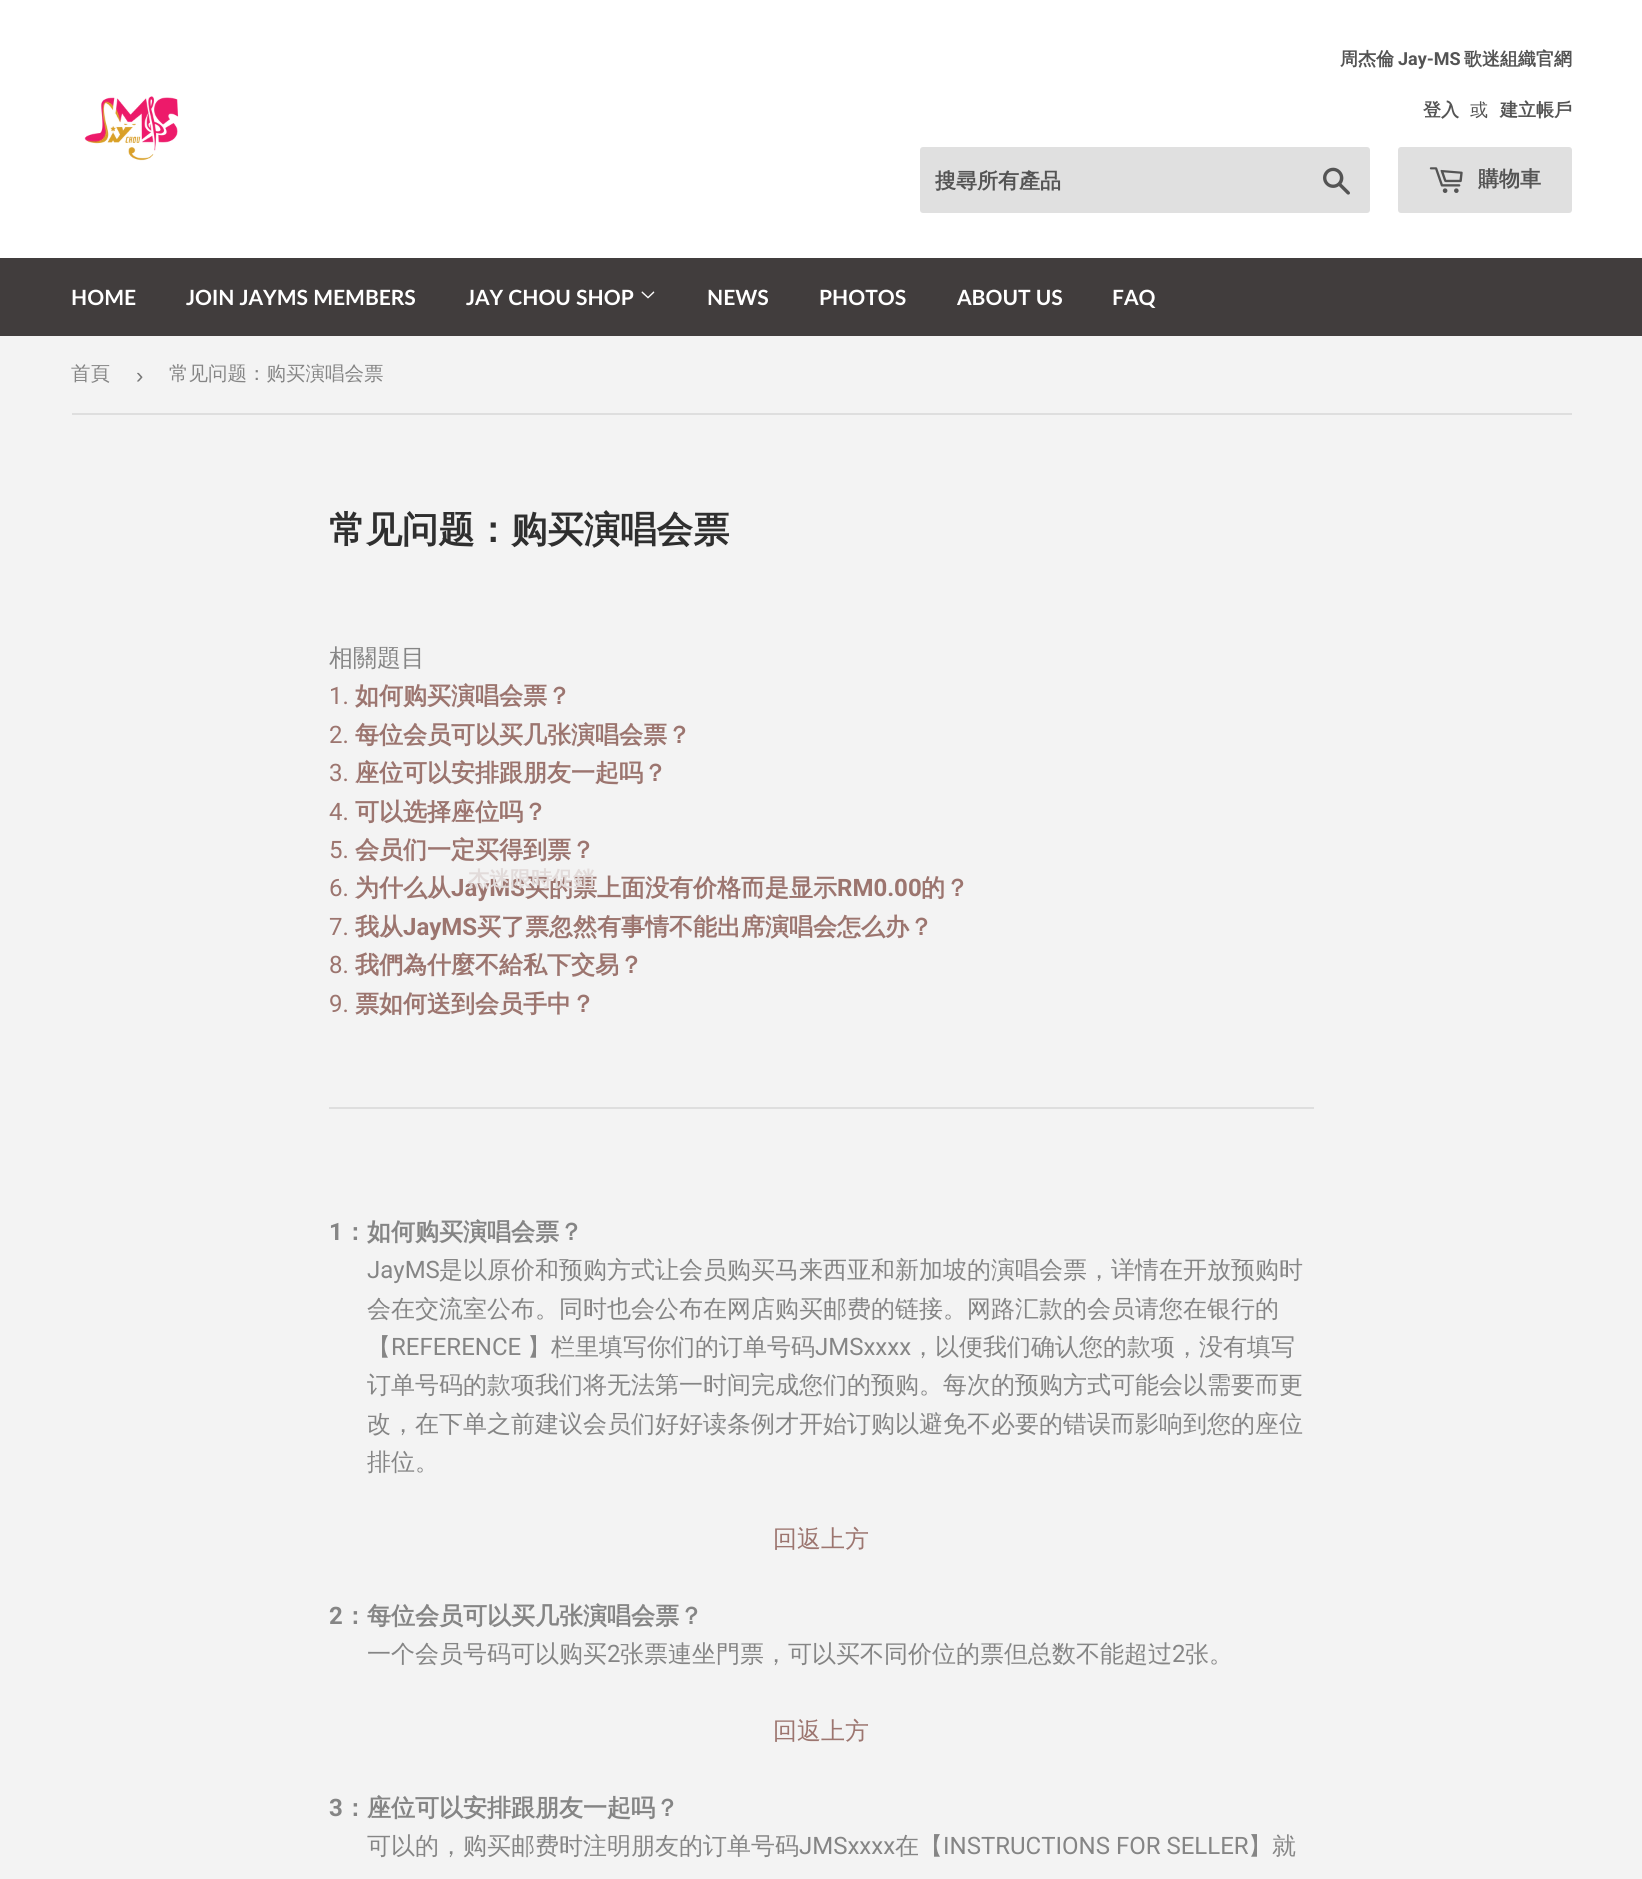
import math
import cairo


def round_path(ctx, x, y, w, h, r):
	ctx.new_sub_path()
	for i, (u, v) in enumerate([(x + w - r, y + h - r), (x + r, y + h - r), (x + r, y + r), (x + w - r, y + r)]):
		ctx.arc(u, v, r, i * math.pi / 2, (i + 1) * math.pi / 2)
	ctx.close_path()

def paste(ctx, path, x, y, w, h):
	ctx.save()
	ctx.set_source_surface(cairo.ImageSurface.create_from_png(path), x, y)
	ctx.rectangle(x, y, w, h)
	ctx.fill()
	ctx.restore()

def draw(ctx):
	ctx.set_source_rgb(0.953, 0.953, 0.953)
	ctx.paint()
	ctx.set_source_rgb(1, 1, 1)
	ctx.rectangle(0, 0, 1642, 258)
	ctx.fill()
	paste(ctx, 'media/1.png', 84, 96, 95, 65)
	ctx.select_font_face('WenQuanYi Zen Hei', cairo.FONT_SLANT_NORMAL, cairo.FONT_WEIGHT_BOLD)
	ctx.set_font_size(18)
	ctx.set_source_rgb(0.329, 0.329, 0.329)
	ctx.move_to(1340, 65)
	ctx.show_text('周杰倫')
	ctx.select_font_face('Roboto', cairo.FONT_SLANT_NORMAL, cairo.FONT_WEIGHT_BOLD)
	ctx.move_to(1398, 65)
	ctx.show_text('Jay-MS')
	ctx.select_font_face('WenQuanYi Zen Hei', cairo.FONT_SLANT_NORMAL, cairo.FONT_WEIGHT_BOLD)
	ctx.move_to(1464, 65)
	ctx.show_text('歌迷組織官網')
	ctx.move_to(1423, 116)
	ctx.show_text('登入')
	ctx.select_font_face('WenQuanYi Zen Hei Medium')
	ctx.move_to(1470, 116)
	ctx.show_text('或')
	ctx.select_font_face('WenQuanYi Zen Hei', cairo.FONT_SLANT_NORMAL, cairo.FONT_WEIGHT_BOLD)
	ctx.move_to(1500, 116)
	ctx.show_text('建立帳戶')
	ctx.set_source_rgb(0.878, 0.878, 0.878)
	round_path(ctx, 920, 147, 450, 66, 3)
	ctx.fill()
	ctx.set_font_size(21)
	ctx.set_source_rgb(0.329, 0.329, 0.329)
	ctx.move_to(935, 188)
	ctx.show_text('搜尋所有產品')
	paste(ctx, 'media/2.png', 1323, 167, 27, 28)
	ctx.set_source_rgb(0.878, 0.878, 0.878)
	round_path(ctx, 1398, 147, 174, 66, 3)
	ctx.fill()
	paste(ctx, 'media/3.png', 1429, 167, 34, 26)
	ctx.set_source_rgb(0.329, 0.329, 0.329)
	ctx.move_to(1478, 186)
	ctx.show_text('購物車')
	ctx.set_source_rgb(0.255, 0.239, 0.239)
	ctx.rectangle(0, 258, 1642, 78)
	ctx.fill()
	ctx.select_font_face('Lato', cairo.FONT_SLANT_NORMAL, cairo.FONT_WEIGHT_BOLD)
	ctx.set_source_rgb(1, 1, 1)
	for x, y, s in [
		(71, 305, 'HOME'),
		(186, 305, 'JOIN JAYMS MEMBERS'),
		(466, 305, 'JAY CHOU SHOP'),
	]:
		ctx.move_to(x, y)
		ctx.show_text(s)
	paste(ctx, 'media/4.png', 641, 291, 14, 8)
	ctx.select_font_face('Roboto', cairo.FONT_SLANT_NORMAL, cairo.FONT_WEIGHT_BOLD)
	ctx.set_font_size(24)
	ctx.set_source_rgb(0.612, 0.459, 0.435)
	ctx.move_to(451, 896)
	ctx.show_text('JayMS')
	ctx.select_font_face('WenQuanYi Zen Hei', cairo.FONT_SLANT_NORMAL, cairo.FONT_WEIGHT_BOLD)
	ctx.move_to(525, 896)
	ctx.show_text('买的票上面没有价格而是显示')
	ctx.set_font_size(21)
	ctx.set_source_rgb(0.886, 0.859, 0.855)
	ctx.move_to(468, 886)
	ctx.show_text('杰迷限時促銷')
	ctx.select_font_face('Lato', cairo.FONT_SLANT_NORMAL, cairo.FONT_WEIGHT_BOLD)
	ctx.set_source_rgb(1, 1, 1)
	for x, y, s in [
		(707, 305, 'NEWS'),
		(819, 305, 'PHOTOS'),
		(957, 305, 'ABOUT US'),
		(1112, 305, 'FAQ'),
	]:
		ctx.move_to(x, y)
		ctx.show_text(s)
	ctx.set_source_rgb(0.871, 0.871, 0.871)
	ctx.rectangle(72, 413, 1500, 2)
	ctx.fill()
	ctx.select_font_face('WenQuanYi Zen Hei Medium')
	ctx.set_font_size(19.5)
	ctx.set_source_rgb(0.522, 0.522, 0.522)
	ctx.move_to(71, 380)
	ctx.show_text('首頁')
	ctx.select_font_face('Liberation Sans')
	ctx.set_font_size(22)
	ctx.set_source_rgb(0.463, 0.463, 0.463)
	ctx.move_to(136, 383)
	ctx.show_text('›')
	ctx.select_font_face('WenQuanYi Zen Hei Medium')
	ctx.set_font_size(19.5)
	ctx.set_source_rgb(0.522, 0.522, 0.522)
	ctx.move_to(169, 380)
	ctx.show_text('常见问题：购买演唱会票')
	ctx.select_font_face('WenQuanYi Zen Hei', cairo.FONT_SLANT_NORMAL, cairo.FONT_WEIGHT_BOLD)
	ctx.set_font_size(36.4)
	ctx.set_source_rgb(0.184, 0.184, 0.184)
	ctx.move_to(329, 542)
	ctx.show_text('常见问题：购买演唱会票')
	ctx.select_font_face('WenQuanYi Zen Hei Medium')
	ctx.set_font_size(24)
	ctx.set_source_rgb(0.522, 0.522, 0.522)
	ctx.move_to(329, 666)
	ctx.show_text('相關題目')
	ctx.select_font_face('Roboto')
	ctx.set_source_rgb(0.612, 0.459, 0.435)
	ctx.move_to(329, 704)
	ctx.show_text('1.')
	ctx.select_font_face('WenQuanYi Zen Hei', cairo.FONT_SLANT_NORMAL, cairo.FONT_WEIGHT_BOLD)
	ctx.move_to(355, 704)
	ctx.show_text('如何购买演唱会票？')
	ctx.select_font_face('Roboto')
	ctx.move_to(329, 743)
	ctx.show_text('2.')
	ctx.select_font_face('WenQuanYi Zen Hei', cairo.FONT_SLANT_NORMAL, cairo.FONT_WEIGHT_BOLD)
	ctx.move_to(355, 743)
	ctx.show_text('每位会员可以买几张演唱会票？')
	ctx.select_font_face('Roboto')
	ctx.move_to(329, 781)
	ctx.show_text('3.')
	ctx.select_font_face('WenQuanYi Zen Hei', cairo.FONT_SLANT_NORMAL, cairo.FONT_WEIGHT_BOLD)
	ctx.move_to(355, 781)
	ctx.show_text('座位可以安排跟朋友一起吗？')
	ctx.select_font_face('Roboto')
	ctx.move_to(329, 820)
	ctx.show_text('4.')
	ctx.select_font_face('WenQuanYi Zen Hei', cairo.FONT_SLANT_NORMAL, cairo.FONT_WEIGHT_BOLD)
	ctx.move_to(355, 820)
	ctx.show_text('可以选择座位吗？')
	ctx.select_font_face('Roboto')
	ctx.move_to(329, 858)
	ctx.show_text('5.')
	ctx.select_font_face('WenQuanYi Zen Hei', cairo.FONT_SLANT_NORMAL, cairo.FONT_WEIGHT_BOLD)
	ctx.move_to(355, 858)
	ctx.show_text('会员们一定买得到票？')
	ctx.select_font_face('Roboto')
	ctx.move_to(329, 896)
	ctx.show_text('6.')
	ctx.select_font_face('WenQuanYi Zen Hei', cairo.FONT_SLANT_NORMAL, cairo.FONT_WEIGHT_BOLD)
	ctx.move_to(355, 896)
	ctx.show_text('为什么从')
	ctx.select_font_face('Roboto', cairo.FONT_SLANT_NORMAL, cairo.FONT_WEIGHT_BOLD)
	ctx.move_to(837, 896)
	ctx.show_text('RM0.00')
	ctx.select_font_face('WenQuanYi Zen Hei', cairo.FONT_SLANT_NORMAL, cairo.FONT_WEIGHT_BOLD)
	ctx.move_to(921, 896)
	ctx.show_text('的？')
	ctx.select_font_face('Roboto')
	ctx.move_to(329, 935)
	ctx.show_text('7.')
	ctx.select_font_face('WenQuanYi Zen Hei', cairo.FONT_SLANT_NORMAL, cairo.FONT_WEIGHT_BOLD)
	ctx.move_to(355, 935)
	ctx.show_text('我从')
	ctx.select_font_face('Roboto', cairo.FONT_SLANT_NORMAL, cairo.FONT_WEIGHT_BOLD)
	ctx.move_to(403, 935)
	ctx.show_text('JayMS')
	ctx.select_font_face('WenQuanYi Zen Hei', cairo.FONT_SLANT_NORMAL, cairo.FONT_WEIGHT_BOLD)
	ctx.move_to(477, 935)
	ctx.show_text('买了票忽然有事情不能出席演唱会怎么办？')
	ctx.select_font_face('Roboto')
	ctx.move_to(329, 973)
	ctx.show_text('8.')
	ctx.select_font_face('WenQuanYi Zen Hei', cairo.FONT_SLANT_NORMAL, cairo.FONT_WEIGHT_BOLD)
	ctx.move_to(355, 973)
	ctx.show_text('我們為什麼不給私下交易？')
	ctx.select_font_face('Roboto')
	ctx.move_to(329, 1012)
	ctx.show_text('9.')
	ctx.select_font_face('WenQuanYi Zen Hei', cairo.FONT_SLANT_NORMAL, cairo.FONT_WEIGHT_BOLD)
	ctx.move_to(355, 1012)
	ctx.show_text('票如何送到会员手中？')
	ctx.set_source_rgb(0.871, 0.871, 0.871)
	ctx.rectangle(329, 1107, 985, 2)
	ctx.fill()
	ctx.select_font_face('Roboto', cairo.FONT_SLANT_NORMAL, cairo.FONT_WEIGHT_BOLD)
	ctx.set_source_rgb(0.522, 0.522, 0.522)
	ctx.move_to(329, 1240)
	ctx.show_text('1')
	ctx.select_font_face('WenQuanYi Zen Hei', cairo.FONT_SLANT_NORMAL, cairo.FONT_WEIGHT_BOLD)
	ctx.move_to(343, 1240)
	ctx.show_text('：如何购买演唱会票？')
	ctx.select_font_face('Roboto')
	ctx.move_to(367, 1278)
	ctx.show_text('JayMS')
	ctx.select_font_face('WenQuanYi Zen Hei Medium')
	for x, y, s in [
		(439, 1278, '是以原价和预购方式让会员购买马来西亚和新加坡的演唱会票，详情在开放预购时'),
		(367, 1317, '会在交流室公布。同时也会公布在网店购买邮费的链接。网路汇款的会员请您在银行的'),
		(367, 1355, '【'),
	]:
		ctx.move_to(x, y)
		ctx.show_text(s)
	ctx.select_font_face('Roboto')
	ctx.move_to(391, 1355)
	ctx.show_text('REFERENCE')
	ctx.select_font_face('WenQuanYi Zen Hei Medium')
	ctx.move_to(527, 1355)
	ctx.show_text('】栏里填写你们的订单号码')
	ctx.select_font_face('Roboto')
	ctx.move_to(815, 1355)
	ctx.show_text('JMSxxxx')
	ctx.select_font_face('WenQuanYi Zen Hei Medium')
	for x, y, s in [
		(911, 1355, '，以便我们确认您的款项，没有填写'),
		(367, 1393, '订单号码的款项我们将无法第一时间完成您们的预购。每次的预购方式可能会以需要而更'),
		(367, 1432, '改，在下单之前建议会员们好好读条例才开始订购以避免不必要的错误而影响到您的座位'),
		(367, 1470, '排位。'),
	]:
		ctx.move_to(x, y)
		ctx.show_text(s)
	ctx.set_source_rgb(0.612, 0.459, 0.435)
	ctx.move_to(773, 1547)
	ctx.show_text('回返上方')
	ctx.select_font_face('Roboto', cairo.FONT_SLANT_NORMAL, cairo.FONT_WEIGHT_BOLD)
	ctx.set_source_rgb(0.522, 0.522, 0.522)
	ctx.move_to(329, 1624)
	ctx.show_text('2')
	ctx.select_font_face('WenQuanYi Zen Hei', cairo.FONT_SLANT_NORMAL, cairo.FONT_WEIGHT_BOLD)
	ctx.move_to(343, 1624)
	ctx.show_text('：每位会员可以买几张演唱会票？')
	ctx.select_font_face('WenQuanYi Zen Hei Medium')
	ctx.move_to(367, 1662)
	ctx.show_text('一个会员号码可以购买')
	ctx.select_font_face('Roboto')
	ctx.move_to(607, 1662)
	ctx.show_text('2')
	ctx.select_font_face('WenQuanYi Zen Hei Medium')
	ctx.move_to(620, 1662)
	ctx.show_text('张票連坐門票，可以买不同价位的票但总数不能超过')
	ctx.select_font_face('Roboto')
	ctx.move_to(1172, 1662)
	ctx.show_text('2')
	ctx.select_font_face('WenQuanYi Zen Hei Medium')
	ctx.move_to(1185, 1662)
	ctx.show_text('张。')
	ctx.set_source_rgb(0.612, 0.459, 0.435)
	ctx.move_to(773, 1739)
	ctx.show_text('回返上方')
	ctx.select_font_face('Roboto', cairo.FONT_SLANT_NORMAL, cairo.FONT_WEIGHT_BOLD)
	ctx.set_source_rgb(0.522, 0.522, 0.522)
	ctx.move_to(329, 1816)
	ctx.show_text('3')
	ctx.select_font_face('WenQuanYi Zen Hei', cairo.FONT_SLANT_NORMAL, cairo.FONT_WEIGHT_BOLD)
	ctx.move_to(343, 1816)
	ctx.show_text('：座位可以安排跟朋友一起吗？')
	ctx.select_font_face('WenQuanYi Zen Hei Medium')
	ctx.move_to(367, 1854)
	ctx.show_text('可以的，购买邮费时注明朋友的订单号码')
	ctx.select_font_face('Roboto')
	ctx.move_to(799, 1854)
	ctx.show_text('JMSxxxx')
	ctx.select_font_face('WenQuanYi Zen Hei Medium')
	ctx.move_to(895, 1854)
	ctx.show_text('在【')
	ctx.select_font_face('Roboto')
	ctx.move_to(943, 1854)
	ctx.show_text('INSTRUCTIONS FOR SELLER')
	ctx.select_font_face('WenQuanYi Zen Hei Medium')
	ctx.move_to(1248, 1854)
	ctx.show_text('】就')


surface = cairo.ImageSurface(cairo.FORMAT_RGB24, 1642, 1879)
ctx = cairo.Context(surface)
options = cairo.FontOptions()
options.set_hint_metrics(cairo.HINT_METRICS_OFF)
options.set_hint_style(cairo.HINT_STYLE_NONE)
ctx.set_font_options(options)
ctx.set_miter_limit(4)
draw(ctx)
surface.write_to_png('image.png')
